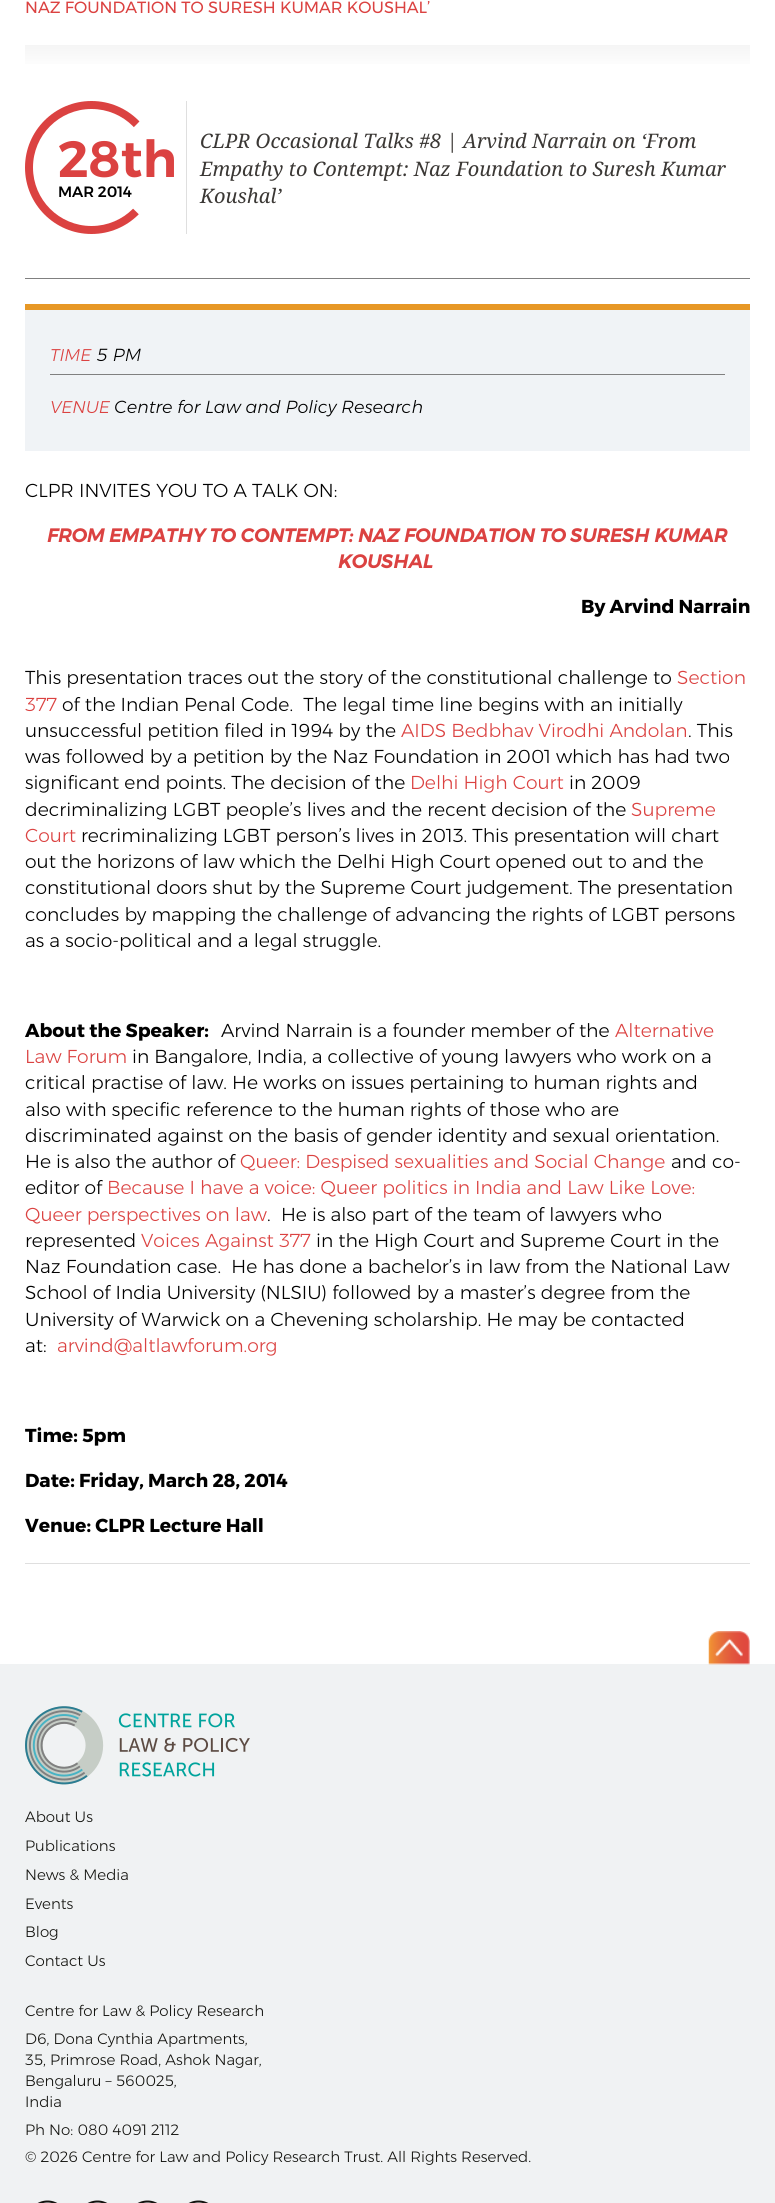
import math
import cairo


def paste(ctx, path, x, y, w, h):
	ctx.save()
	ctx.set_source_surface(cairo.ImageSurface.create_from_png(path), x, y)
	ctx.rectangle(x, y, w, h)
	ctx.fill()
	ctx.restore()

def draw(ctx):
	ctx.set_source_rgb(1, 1, 1)
	ctx.paint()
	ctx.select_font_face('Montserrat')
	ctx.set_font_size(16.25)
	ctx.set_source_rgb(0.859, 0.259, 0.255)
	ctx.move_to(25, 13)
	ctx.show_text('NAZ FOUNDATION TO SURESH KUMAR KOUSHAL’')
	gradient = cairo.LinearGradient(388, 45, 388, 70)
	gradient.add_color_stop_rgba(0, 0.961, 0.961, 0.961, 1)
	gradient.add_color_stop_rgba(1, 1, 1, 1, 1)
	ctx.set_source(gradient)
	ctx.rectangle(25, 45, 725, 19)
	ctx.fill()
	ctx.set_source_rgb(0.502, 0.502, 0.502)
	ctx.rectangle(25, 278, 725, 1)
	ctx.fill()
	ctx.set_source_rgb(0.859, 0.259, 0.255)
	ctx.arc(91.5, 167.5, 66.5, 0, 2 * math.pi)
	ctx.fill()
	ctx.set_source_rgb(1, 1, 1)
	ctx.arc(91.5, 167.5, 58.5, 0, 2 * math.pi)
	ctx.fill()
	ctx.new_path()
	ctx.move_to(140, 121.5)
	ctx.curve_to(165.5, 147, 165.5, 189, 140, 214.5)
	ctx.set_line_width(6.2)
	ctx.stroke()
	ctx.new_path()
	ctx.move_to(136.5, 124.5)
	ctx.curve_to(160, 148, 160, 188, 136.5, 212)
	ctx.set_line_width(11.2)
	ctx.stroke()
	ctx.select_font_face('Montserrat SemiBold')
	ctx.set_font_size(51)
	ctx.set_source_rgb(0.859, 0.259, 0.255)
	ctx.move_to(58, 177)
	ctx.show_text('28th')
	ctx.select_font_face('Montserrat Medium')
	ctx.set_font_size(15)
	ctx.set_source_rgb(0, 0, 0)
	ctx.move_to(58, 197)
	ctx.show_text('MAR 2014')
	ctx.set_source_rgb(0.875, 0.875, 0.875)
	ctx.rectangle(186, 101, 1, 133)
	ctx.fill()
	ctx.select_font_face('Droid Serif', cairo.FONT_SLANT_ITALIC)
	ctx.set_font_size(20)
	ctx.set_source_rgb(0.231, 0.22, 0.208)
	for x, y, s in [
		(200, 148, 'CLPR Occasional Talks #8 | Arvind Narrain on ‘From'),
		(200, 176, 'Empathy to Contempt: Naz Foundation to Suresh Kumar'),
		(200, 203, 'Koushal’'),
	]:
		ctx.move_to(x, y)
		ctx.show_text(s)
	ctx.set_source_rgb(0.875, 0.875, 0.875)
	ctx.rectangle(25, 1563, 725, 1)
	ctx.fill()
	ctx.set_source_rgb(0.941, 0.953, 0.961)
	ctx.rectangle(25, 310, 725, 141)
	ctx.fill()
	ctx.set_source_rgb(0.906, 0.596, 0.149)
	ctx.rectangle(25, 304, 725, 6)
	ctx.fill()
	ctx.set_source_rgb(0.502, 0.502, 0.502)
	ctx.rectangle(50, 374, 675, 1)
	ctx.fill()
	ctx.select_font_face('Montserrat Light', cairo.FONT_SLANT_ITALIC)
	ctx.set_font_size(17)
	ctx.set_source_rgb(0.859, 0.259, 0.255)
	ctx.move_to(50, 361)
	ctx.show_text('TIME')
	ctx.set_font_size(17.5)
	ctx.set_source_rgb(0, 0, 0)
	ctx.move_to(96, 361)
	ctx.show_text('5 PM')
	ctx.set_font_size(17)
	ctx.set_source_rgb(0.859, 0.259, 0.255)
	ctx.move_to(50, 413)
	ctx.show_text('VENUE')
	ctx.set_font_size(17.5)
	ctx.set_source_rgb(0, 0, 0)
	ctx.move_to(114, 413)
	ctx.show_text('Centre for Law and Policy Research')
	ctx.select_font_face('Montserrat Light')
	ctx.set_font_size(18.75)
	ctx.move_to(25, 497)
	ctx.show_text('CLPR INVITES YOU TO A TALK ON:')
	ctx.select_font_face('Montserrat', cairo.FONT_SLANT_ITALIC, cairo.FONT_WEIGHT_BOLD)
	ctx.set_source_rgb(0.859, 0.259, 0.255)
	ctx.move_to(47, 542)
	ctx.show_text('FROM EMPATHY TO CONTEMPT: NAZ FOUNDATION TO SURESH KUMAR')
	ctx.move_to(338, 568)
	ctx.show_text('KOUSHAL')
	ctx.select_font_face('Montserrat', cairo.FONT_SLANT_NORMAL, cairo.FONT_WEIGHT_BOLD)
	ctx.set_source_rgb(0, 0, 0)
	ctx.move_to(581, 613)
	ctx.show_text('By Arvind Narrain')
	ctx.select_font_face('Montserrat Light')
	ctx.move_to(25, 684)
	ctx.show_text('This presentation traces out the story of the constitutional challenge to')
	ctx.set_source_rgb(0.859, 0.259, 0.255)
	ctx.move_to(677, 684)
	ctx.show_text('Section')
	ctx.move_to(25, 711)
	ctx.show_text('377')
	ctx.set_source_rgb(0, 0, 0)
	ctx.move_to(62, 711)
	ctx.show_text('of the Indian Penal Code.  The legal time line begins with an initially')
	ctx.move_to(25, 737)
	ctx.show_text('unsuccessful petition filed in 1994 by the')
	ctx.set_source_rgb(0.859, 0.259, 0.255)
	ctx.move_to(401, 737)
	ctx.show_text('AIDS Bedbhav Virodhi Andolan')
	ctx.set_source_rgb(0, 0, 0)
	for x, y, s in [
		(688, 737, '. This'),
		(25, 763, 'was followed by a petition by the Naz Foundation in 2001 which has had two'),
		(25, 789, 'significant end points. The decision of the'),
	]:
		ctx.move_to(x, y)
		ctx.show_text(s)
	ctx.set_source_rgb(0.859, 0.259, 0.255)
	ctx.move_to(410, 789)
	ctx.show_text('Delhi High Court')
	ctx.set_source_rgb(0, 0, 0)
	ctx.move_to(569, 789)
	ctx.show_text('in 2009')
	ctx.move_to(25, 816)
	ctx.show_text('decriminalizing LGBT people’s lives and the recent decision of the')
	ctx.set_source_rgb(0.859, 0.259, 0.255)
	ctx.move_to(631, 816)
	ctx.show_text('Supreme')
	ctx.move_to(25, 842)
	ctx.show_text('Court')
	ctx.set_source_rgb(0, 0, 0)
	for x, y, s in [
		(81, 842, 'recriminalizing LGBT person’s lives in 2013. This presentation will chart'),
		(25, 868, 'out the horizons of law which the Delhi High Court opened out to and the'),
		(25, 894, 'constitutional doors shut by the Supreme Court judgement. The presentation'),
		(25, 921, 'concludes by mapping the challenge of advancing the rights of LGBT persons'),
		(25, 947, 'as a socio-political and a legal struggle.'),
	]:
		ctx.move_to(x, y)
		ctx.show_text(s)
	ctx.select_font_face('Montserrat', cairo.FONT_SLANT_NORMAL, cairo.FONT_WEIGHT_BOLD)
	ctx.move_to(25, 1037)
	ctx.show_text('About the Speaker:')
	ctx.select_font_face('Montserrat Light')
	ctx.move_to(221, 1037)
	ctx.show_text('Arvind Narrain is a founder member of the')
	ctx.set_source_rgb(0.859, 0.259, 0.255)
	ctx.move_to(615, 1037)
	ctx.show_text('Alternative')
	ctx.move_to(25, 1063)
	ctx.show_text('Law Forum')
	ctx.set_source_rgb(0, 0, 0)
	for x, y, s in [
		(132, 1063, 'in Bangalore, India, a collective of young lawyers who work on a'),
		(25, 1089, 'critical practise of law. He works on issues pertaining to human rights and'),
		(25, 1116, 'also with specific reference to the human rights of those who are'),
		(25, 1142, 'discriminated against on the basis of gender identity and sexual orientation.'),
		(25, 1168, 'He is also the author of'),
	]:
		ctx.move_to(x, y)
		ctx.show_text(s)
	ctx.set_source_rgb(0.859, 0.259, 0.255)
	ctx.move_to(240, 1168)
	ctx.show_text('Queer: Despised sexualities and Social Change')
	ctx.set_source_rgb(0, 0, 0)
	ctx.move_to(671, 1168)
	ctx.show_text('and co-')
	ctx.move_to(25, 1194)
	ctx.show_text('editor of')
	ctx.set_source_rgb(0.859, 0.259, 0.255)
	ctx.move_to(107, 1194)
	ctx.show_text('Because I have a voice: Queer politics in India and Law Like Love:')
	ctx.move_to(25, 1221)
	ctx.show_text('Queer perspectives on law')
	ctx.set_source_rgb(0, 0, 0)
	ctx.move_to(267, 1221)
	ctx.show_text('.  He is also part of the team of lawyers who')
	ctx.move_to(25, 1247)
	ctx.show_text('represented')
	ctx.set_source_rgb(0.859, 0.259, 0.255)
	ctx.move_to(141, 1247)
	ctx.show_text('Voices Against 377')
	ctx.set_source_rgb(0, 0, 0)
	for x, y, s in [
		(316, 1247, 'in the High Court and Supreme Court in the'),
		(25, 1273, 'Naz Foundation case.  He has done a bachelor’s in law from the National Law'),
		(25, 1299, 'School of India University (NLSIU) followed by a master’s degree from the'),
		(25, 1326, 'University of Warwick on a Chevening scholarship. He may be contacted'),
		(25, 1352, 'at:'),
	]:
		ctx.move_to(x, y)
		ctx.show_text(s)
	ctx.set_source_rgb(0.859, 0.259, 0.255)
	ctx.move_to(57, 1352)
	ctx.show_text('arvind@altlawforum.org')
	ctx.select_font_face('Montserrat', cairo.FONT_SLANT_NORMAL, cairo.FONT_WEIGHT_BOLD)
	ctx.set_source_rgb(0, 0, 0)
	for x, y, s in [
		(25, 1442, 'Time: 5pm'),
		(25, 1487, 'Date: Friday, March 28, 2014'),
		(25, 1532, 'Venue: CLPR Lecture Hall'),
	]:
		ctx.move_to(x, y)
		ctx.show_text(s)
	ctx.set_source_rgb(0.941, 0.949, 0.953)
	ctx.rectangle(0, 1664, 775, 539)
	ctx.fill()
	paste(ctx, 'media/1.png', 708, 1631, 42, 34)
	paste(ctx, 'media/2.png', 25, 1706, 225, 79)
	ctx.select_font_face('Montserrat Light')
	ctx.set_font_size(15)
	ctx.set_source_rgb(0.078, 0.075, 0.059)
	for x, y, s in [
		(25, 1822, 'About Us'),
		(25, 1851, 'Publications'),
		(25, 1880, 'News & Media'),
		(25, 1909, 'Events'),
		(25, 1937, 'Blog'),
		(25, 1966, 'Contact Us'),
		(25, 2016, 'Centre for Law & Policy Research'),
		(25, 2044, 'D6, Dona Cynthia Apartments,'),
		(25, 2065, '35, Primrose Road, Ashok Nagar,'),
		(25, 2086, 'Bengaluru – 560025,'),
		(25, 2107, 'India'),
		(25, 2135, 'Ph No: 080 4091 2112'),
		(25, 2162, '© 2026 Centre for Law and Policy Research Trust. All Rights Reserved.'),
	]:
		ctx.move_to(x, y)
		ctx.show_text(s)
	paste(ctx, 'media/3.png', 37, 2200, 21, 3)
	paste(ctx, 'media/3.png', 87, 2200, 21, 3)
	paste(ctx, 'media/3.png', 137, 2200, 21, 3)
	paste(ctx, 'media/3.png', 188, 2200, 21, 3)


surface = cairo.ImageSurface(cairo.FORMAT_RGB24, 775, 2203)
ctx = cairo.Context(surface)
options = cairo.FontOptions()
options.set_hint_metrics(cairo.HINT_METRICS_OFF)
options.set_hint_style(cairo.HINT_STYLE_NONE)
ctx.set_font_options(options)
ctx.set_miter_limit(4)
draw(ctx)
surface.write_to_png('image.png')
